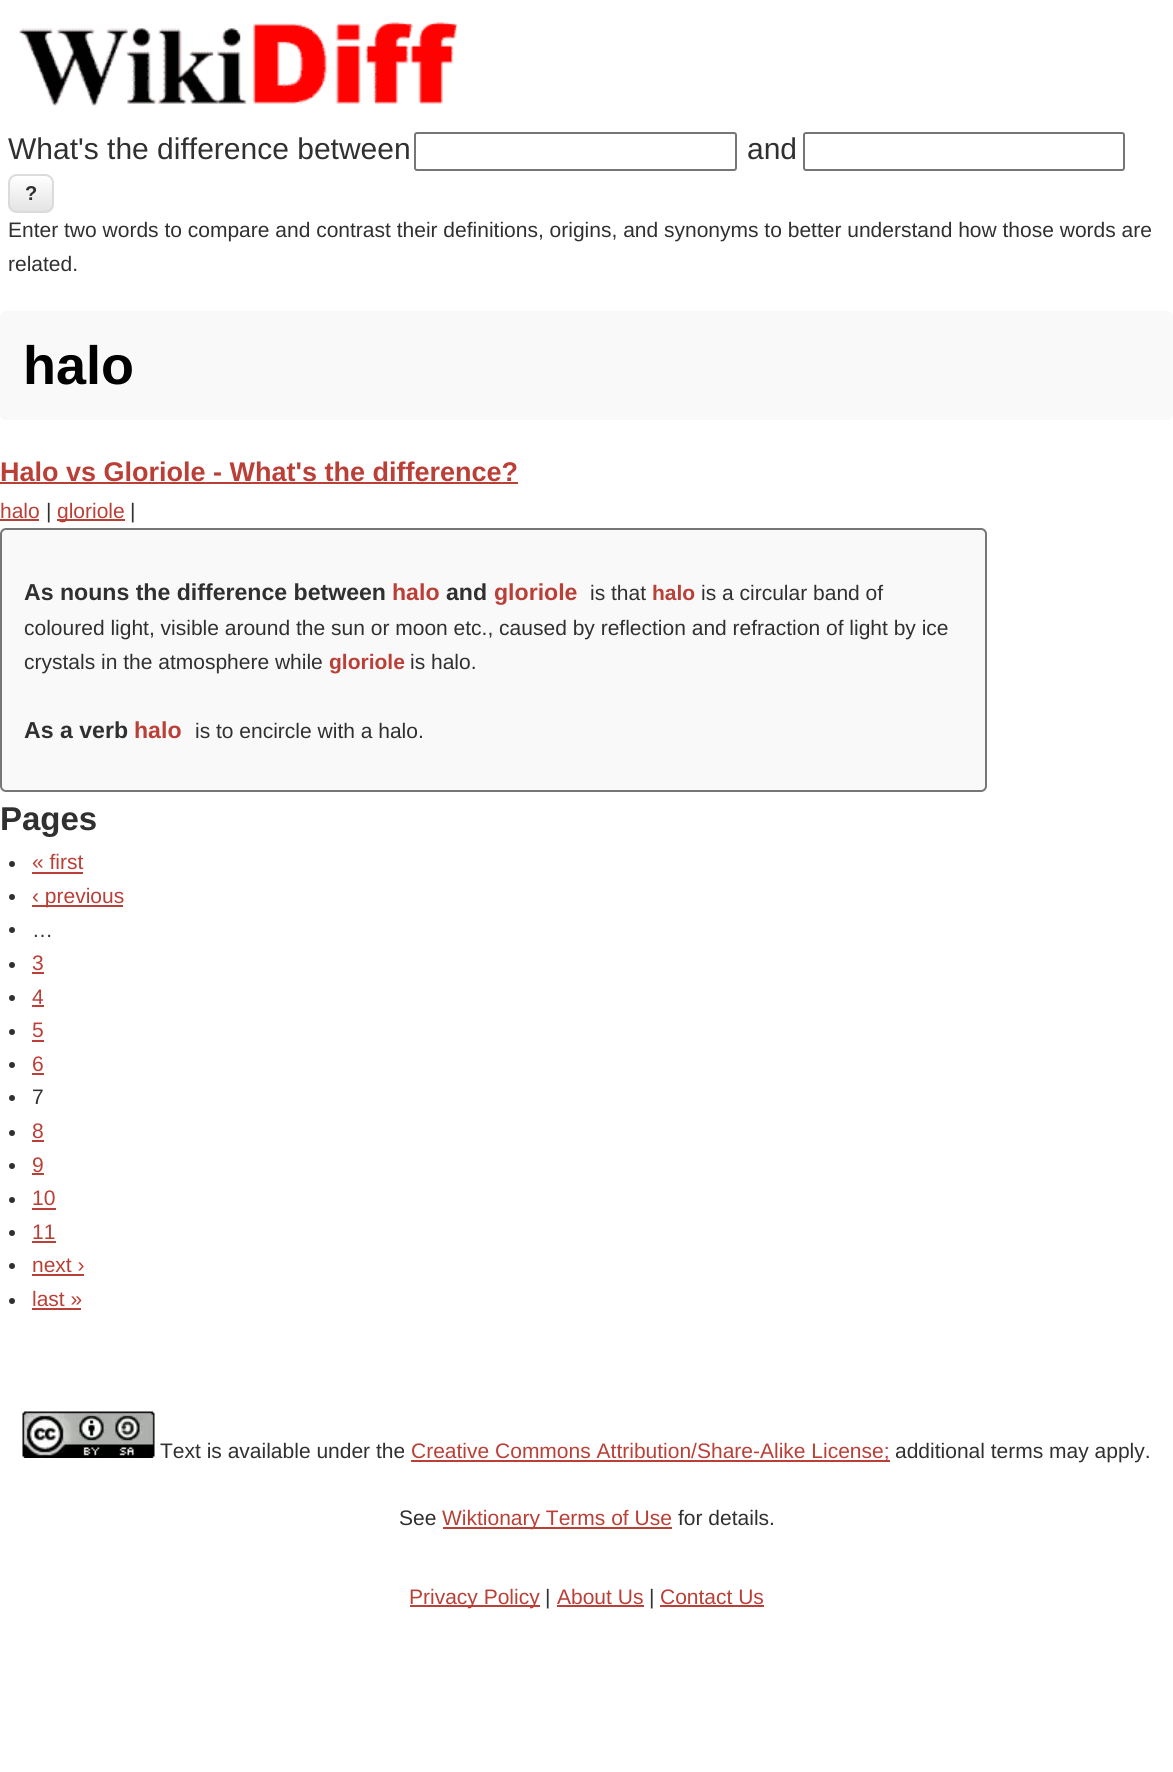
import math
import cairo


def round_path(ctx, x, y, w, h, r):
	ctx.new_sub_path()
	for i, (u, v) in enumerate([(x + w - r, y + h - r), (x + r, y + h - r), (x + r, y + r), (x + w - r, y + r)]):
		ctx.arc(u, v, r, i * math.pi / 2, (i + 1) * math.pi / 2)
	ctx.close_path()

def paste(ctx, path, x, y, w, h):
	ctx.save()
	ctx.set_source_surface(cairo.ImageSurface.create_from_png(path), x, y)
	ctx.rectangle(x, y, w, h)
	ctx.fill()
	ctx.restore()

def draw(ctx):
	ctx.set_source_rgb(1, 1, 1)
	ctx.paint()
	paste(ctx, 'media/1.png', 19, 22, 439, 84)
	ctx.select_font_face('Liberation Sans')
	ctx.set_font_size(30)
	ctx.set_source_rgb(0.188, 0.188, 0.188)
	ctx.move_to(8, 159)
	ctx.show_text('What\'s the difference between')
	round_path(ctx, 415, 133, 321, 37, 2)
	ctx.set_source_rgb(0.463, 0.463, 0.463)
	ctx.stroke()
	ctx.set_source_rgb(0.188, 0.188, 0.188)
	ctx.move_to(747, 159)
	ctx.show_text('and')
	round_path(ctx, 804, 133, 320, 37, 2)
	ctx.set_source_rgb(0.463, 0.463, 0.463)
	ctx.stroke()
	ctx.save()
	round_path(ctx, 8, 174, 46, 39, 9)
	ctx.clip()
	gradient = cairo.LinearGradient(31, 176, 31, 212)
	gradient.add_color_stop_rgba(0, 1, 1, 1, 1)
	gradient.add_color_stop_rgba(1, 0.89, 0.89, 0.89, 1)
	ctx.set_source(gradient)
	ctx.rectangle(8, 176, 46, 36)
	ctx.fill()
	ctx.restore()
	ctx.set_source_rgb(1, 1, 1)
	ctx.new_path()
	ctx.move_to(16, 177)
	ctx.line_to(40, 177)
	ctx.curve_to(53, 177, 52, 180, 52, 191)
	ctx.line_to(52, 209)
	ctx.curve_to(52, 207, 53, 206, 53, 204)
	ctx.line_to(53, 184)
	ctx.curve_to(53, 180, 49, 176, 45, 176)
	ctx.line_to(17, 176)
	ctx.curve_to(13, 176, 9, 180, 9, 184)
	ctx.curve_to(9, 180, 12, 177, 16, 177)
	ctx.close_path()
	ctx.fill()
	round_path(ctx, 9, 175, 44, 37, 8)
	ctx.set_source_rgb(0.859, 0.859, 0.859)
	ctx.stroke()
	ctx.select_font_face('Liberation Sans', cairo.FONT_SLANT_NORMAL, cairo.FONT_WEIGHT_BOLD)
	ctx.set_font_size(20)
	ctx.set_source_rgb(0.188, 0.188, 0.188)
	ctx.move_to(25, 200)
	ctx.show_text('?')
	ctx.select_font_face('Liberation Sans')
	ctx.set_font_size(21)
	ctx.move_to(8, 237)
	ctx.show_text('Enter two words to compare and contrast their definitions, origins, and synonyms to better understand how those words are')
	ctx.move_to(8, 271)
	ctx.show_text('related.')
	ctx.set_source_rgb(0.973, 0.973, 0.973)
	round_path(ctx, 0, 311, 1173, 109, 6)
	ctx.fill()
	ctx.select_font_face('Liberation Sans', cairo.FONT_SLANT_NORMAL, cairo.FONT_WEIGHT_BOLD)
	ctx.set_font_size(54)
	ctx.set_source_rgb(0, 0, 0)
	ctx.move_to(23, 384)
	ctx.show_text('halo')
	ctx.set_font_size(27)
	ctx.set_source_rgb(0.729, 0.247, 0.212)
	ctx.move_to(0, 481)
	ctx.show_text('Halo vs Gloriole - What\'s the difference?')
	ctx.rectangle(0, 482, 518, 2)
	ctx.fill()
	ctx.select_font_face('Liberation Sans')
	ctx.set_font_size(21)
	ctx.move_to(0, 518)
	ctx.show_text('halo')
	ctx.rectangle(0, 519, 39, 2)
	ctx.fill()
	ctx.set_source_rgb(0.188, 0.188, 0.188)
	ctx.move_to(46, 518)
	ctx.show_text('|')
	ctx.set_source_rgb(0.729, 0.247, 0.212)
	ctx.rectangle(57, 519, 68, 2)
	ctx.fill()
	ctx.move_to(57, 518)
	ctx.show_text('gloriole')
	ctx.set_source_rgb(0.188, 0.188, 0.188)
	ctx.move_to(130, 518)
	ctx.show_text('|')
	ctx.set_source_rgb(0.973, 0.973, 0.973)
	round_path(ctx, 1, 529, 985, 262, 5)
	ctx.fill_preserve()
	ctx.set_source_rgb(0.467, 0.467, 0.467)
	ctx.stroke()
	ctx.select_font_face('Liberation Sans', cairo.FONT_SLANT_NORMAL, cairo.FONT_WEIGHT_BOLD)
	ctx.set_font_size(23.1)
	ctx.set_source_rgb(0.188, 0.188, 0.188)
	ctx.move_to(24, 600)
	ctx.show_text('As nouns the difference between')
	ctx.set_source_rgb(0.729, 0.247, 0.212)
	ctx.move_to(392, 600)
	ctx.show_text('halo')
	ctx.set_source_rgb(0.188, 0.188, 0.188)
	ctx.move_to(446, 600)
	ctx.show_text('and')
	ctx.set_source_rgb(0.729, 0.247, 0.212)
	ctx.move_to(494, 600)
	ctx.show_text('gloriole')
	ctx.select_font_face('Liberation Sans')
	ctx.set_font_size(21)
	ctx.set_source_rgb(0.188, 0.188, 0.188)
	ctx.move_to(590, 600)
	ctx.show_text('is that')
	ctx.select_font_face('Liberation Sans', cairo.FONT_SLANT_NORMAL, cairo.FONT_WEIGHT_BOLD)
	ctx.set_source_rgb(0.729, 0.247, 0.212)
	ctx.move_to(652, 600)
	ctx.show_text('halo')
	ctx.select_font_face('Liberation Sans')
	ctx.set_source_rgb(0.188, 0.188, 0.188)
	for x, y, s in [
		(701, 600, 'is a circular band of'),
		(24, 635, 'coloured light, visible around the sun or moon etc., caused by reflection and refraction of light by ice'),
		(24, 669, 'crystals in the atmosphere while'),
	]:
		ctx.move_to(x, y)
		ctx.show_text(s)
	ctx.select_font_face('Liberation Sans', cairo.FONT_SLANT_NORMAL, cairo.FONT_WEIGHT_BOLD)
	ctx.set_source_rgb(0.729, 0.247, 0.212)
	ctx.move_to(329, 669)
	ctx.show_text('gloriole')
	ctx.select_font_face('Liberation Sans')
	ctx.set_source_rgb(0.188, 0.188, 0.188)
	ctx.move_to(410, 669)
	ctx.show_text('is halo.')
	ctx.select_font_face('Liberation Sans', cairo.FONT_SLANT_NORMAL, cairo.FONT_WEIGHT_BOLD)
	ctx.set_font_size(23.1)
	ctx.move_to(24, 738)
	ctx.show_text('As a verb')
	ctx.set_source_rgb(0.729, 0.247, 0.212)
	ctx.move_to(134, 738)
	ctx.show_text('halo')
	ctx.select_font_face('Liberation Sans')
	ctx.set_font_size(21)
	ctx.set_source_rgb(0.188, 0.188, 0.188)
	ctx.move_to(195, 738)
	ctx.show_text('is to encircle with a halo.')
	ctx.select_font_face('Liberation Sans', cairo.FONT_SLANT_NORMAL, cairo.FONT_WEIGHT_BOLD)
	ctx.set_font_size(33)
	ctx.move_to(0, 830)
	ctx.show_text('Pages')
	ctx.new_path()
	ctx.arc(12, 864, 3, 0, 2 * math.pi)
	ctx.fill()
	ctx.select_font_face('Liberation Sans')
	ctx.set_font_size(21)
	ctx.set_source_rgb(0.729, 0.247, 0.212)
	ctx.move_to(32, 869)
	ctx.show_text('« first')
	ctx.rectangle(32, 872, 51, 2)
	ctx.fill()
	ctx.set_source_rgb(0.188, 0.188, 0.188)
	ctx.arc(12, 897, 3, 0, 2 * math.pi)
	ctx.fill()
	ctx.set_source_rgb(0.729, 0.247, 0.212)
	ctx.rectangle(32, 905, 91, 2)
	ctx.fill()
	ctx.move_to(32, 903)
	ctx.show_text('‹ previous')
	ctx.set_source_rgb(0.188, 0.188, 0.188)
	ctx.new_path()
	ctx.arc(12, 930, 3, 0, 2 * math.pi)
	ctx.fill()
	ctx.move_to(32, 937)
	ctx.show_text('…')
	ctx.new_path()
	ctx.arc(12, 965, 3, 0, 2 * math.pi)
	ctx.fill()
	ctx.set_source_rgb(0.729, 0.247, 0.212)
	ctx.move_to(32, 970)
	ctx.show_text('3')
	ctx.rectangle(32, 972, 12, 2)
	ctx.fill()
	ctx.set_source_rgb(0.188, 0.188, 0.188)
	ctx.arc(12, 998, 3, 0, 2 * math.pi)
	ctx.fill()
	ctx.set_source_rgb(0.729, 0.247, 0.212)
	ctx.move_to(32, 1004)
	ctx.show_text('4')
	ctx.rectangle(32, 1005, 12, 2)
	ctx.fill()
	ctx.set_source_rgb(0.188, 0.188, 0.188)
	ctx.arc(12, 1032, 3, 0, 2 * math.pi)
	ctx.fill()
	ctx.set_source_rgb(0.729, 0.247, 0.212)
	ctx.move_to(32, 1037)
	ctx.show_text('5')
	ctx.rectangle(32, 1040, 12, 2)
	ctx.fill()
	ctx.set_source_rgb(0.188, 0.188, 0.188)
	ctx.arc(12, 1065, 3, 0, 2 * math.pi)
	ctx.fill()
	ctx.set_source_rgb(0.729, 0.247, 0.212)
	ctx.move_to(32, 1071)
	ctx.show_text('6')
	ctx.rectangle(32, 1073, 12, 2)
	ctx.fill()
	ctx.set_source_rgb(0.188, 0.188, 0.188)
	ctx.arc(12, 1098, 3, 0, 2 * math.pi)
	ctx.fill()
	ctx.move_to(32, 1104)
	ctx.show_text('7')
	ctx.new_path()
	ctx.arc(12, 1133, 3, 0, 2 * math.pi)
	ctx.fill()
	ctx.set_source_rgb(0.729, 0.247, 0.212)
	ctx.move_to(32, 1138)
	ctx.show_text('8')
	ctx.rectangle(32, 1140, 12, 2)
	ctx.fill()
	ctx.set_source_rgb(0.188, 0.188, 0.188)
	ctx.arc(12, 1166, 3, 0, 2 * math.pi)
	ctx.fill()
	ctx.set_source_rgb(0.729, 0.247, 0.212)
	ctx.move_to(32, 1172)
	ctx.show_text('9')
	ctx.rectangle(32, 1173, 12, 2)
	ctx.fill()
	ctx.set_source_rgb(0.188, 0.188, 0.188)
	ctx.arc(12, 1200, 3, 0, 2 * math.pi)
	ctx.fill()
	ctx.set_source_rgb(0.729, 0.247, 0.212)
	ctx.move_to(32, 1205)
	ctx.show_text('10')
	ctx.rectangle(32, 1208, 24, 2)
	ctx.fill()
	ctx.set_source_rgb(0.188, 0.188, 0.188)
	ctx.arc(12, 1233, 3, 0, 2 * math.pi)
	ctx.fill()
	ctx.set_source_rgb(0.729, 0.247, 0.212)
	ctx.move_to(32, 1239)
	ctx.show_text('11')
	ctx.rectangle(32, 1241, 24, 2)
	ctx.fill()
	ctx.set_source_rgb(0.188, 0.188, 0.188)
	ctx.arc(12, 1266, 3, 0, 2 * math.pi)
	ctx.fill()
	ctx.set_source_rgb(0.729, 0.247, 0.212)
	ctx.move_to(32, 1272)
	ctx.show_text('next ›')
	ctx.rectangle(32, 1274, 52, 2)
	ctx.fill()
	ctx.set_source_rgb(0.188, 0.188, 0.188)
	ctx.arc(12, 1301, 3, 0, 2 * math.pi)
	ctx.fill()
	ctx.set_source_rgb(0.729, 0.247, 0.212)
	ctx.move_to(32, 1306)
	ctx.show_text('last »')
	ctx.rectangle(32, 1308, 49, 2)
	ctx.fill()
	paste(ctx, 'media/2.png', 22, 1411, 133, 47)
	ctx.set_source_rgb(0.188, 0.188, 0.188)
	ctx.move_to(160, 1458)
	ctx.show_text('Text is available under the')
	ctx.set_source_rgb(0.729, 0.247, 0.212)
	ctx.rectangle(411, 1460, 479, 2)
	ctx.fill()
	ctx.move_to(411, 1458)
	ctx.show_text('Creative Commons Attribution/Share-Alike License;')
	ctx.set_source_rgb(0.188, 0.188, 0.188)
	ctx.move_to(895, 1458)
	ctx.show_text('additional terms may apply.')
	ctx.move_to(399, 1525)
	ctx.show_text('See')
	ctx.set_source_rgb(0.729, 0.247, 0.212)
	ctx.rectangle(443, 1527, 229, 2)
	ctx.fill()
	ctx.move_to(442, 1525)
	ctx.show_text('Wiktionary Terms of Use')
	ctx.set_source_rgb(0.188, 0.188, 0.188)
	ctx.move_to(678, 1525)
	ctx.show_text('for details.')
	ctx.set_source_rgb(0.729, 0.247, 0.212)
	ctx.rectangle(410, 1605, 130, 2)
	ctx.fill()
	ctx.move_to(409, 1604)
	ctx.show_text('Privacy Policy')
	ctx.set_source_rgb(0.188, 0.188, 0.188)
	ctx.move_to(545, 1604)
	ctx.show_text('|')
	ctx.set_source_rgb(0.729, 0.247, 0.212)
	ctx.move_to(557, 1604)
	ctx.show_text('About Us')
	ctx.rectangle(557, 1605, 87, 2)
	ctx.fill()
	ctx.set_source_rgb(0.188, 0.188, 0.188)
	ctx.move_to(649, 1604)
	ctx.show_text('|')
	ctx.set_source_rgb(0.729, 0.247, 0.212)
	ctx.move_to(660, 1604)
	ctx.show_text('Contact Us')
	ctx.rectangle(660, 1605, 104, 2)
	ctx.fill()


surface = cairo.ImageSurface(cairo.FORMAT_RGB24, 1173, 1772)
ctx = cairo.Context(surface)
options = cairo.FontOptions()
options.set_hint_metrics(cairo.HINT_METRICS_OFF)
options.set_hint_style(cairo.HINT_STYLE_NONE)
ctx.set_font_options(options)
ctx.set_miter_limit(4)
draw(ctx)
surface.write_to_png('image.png')
